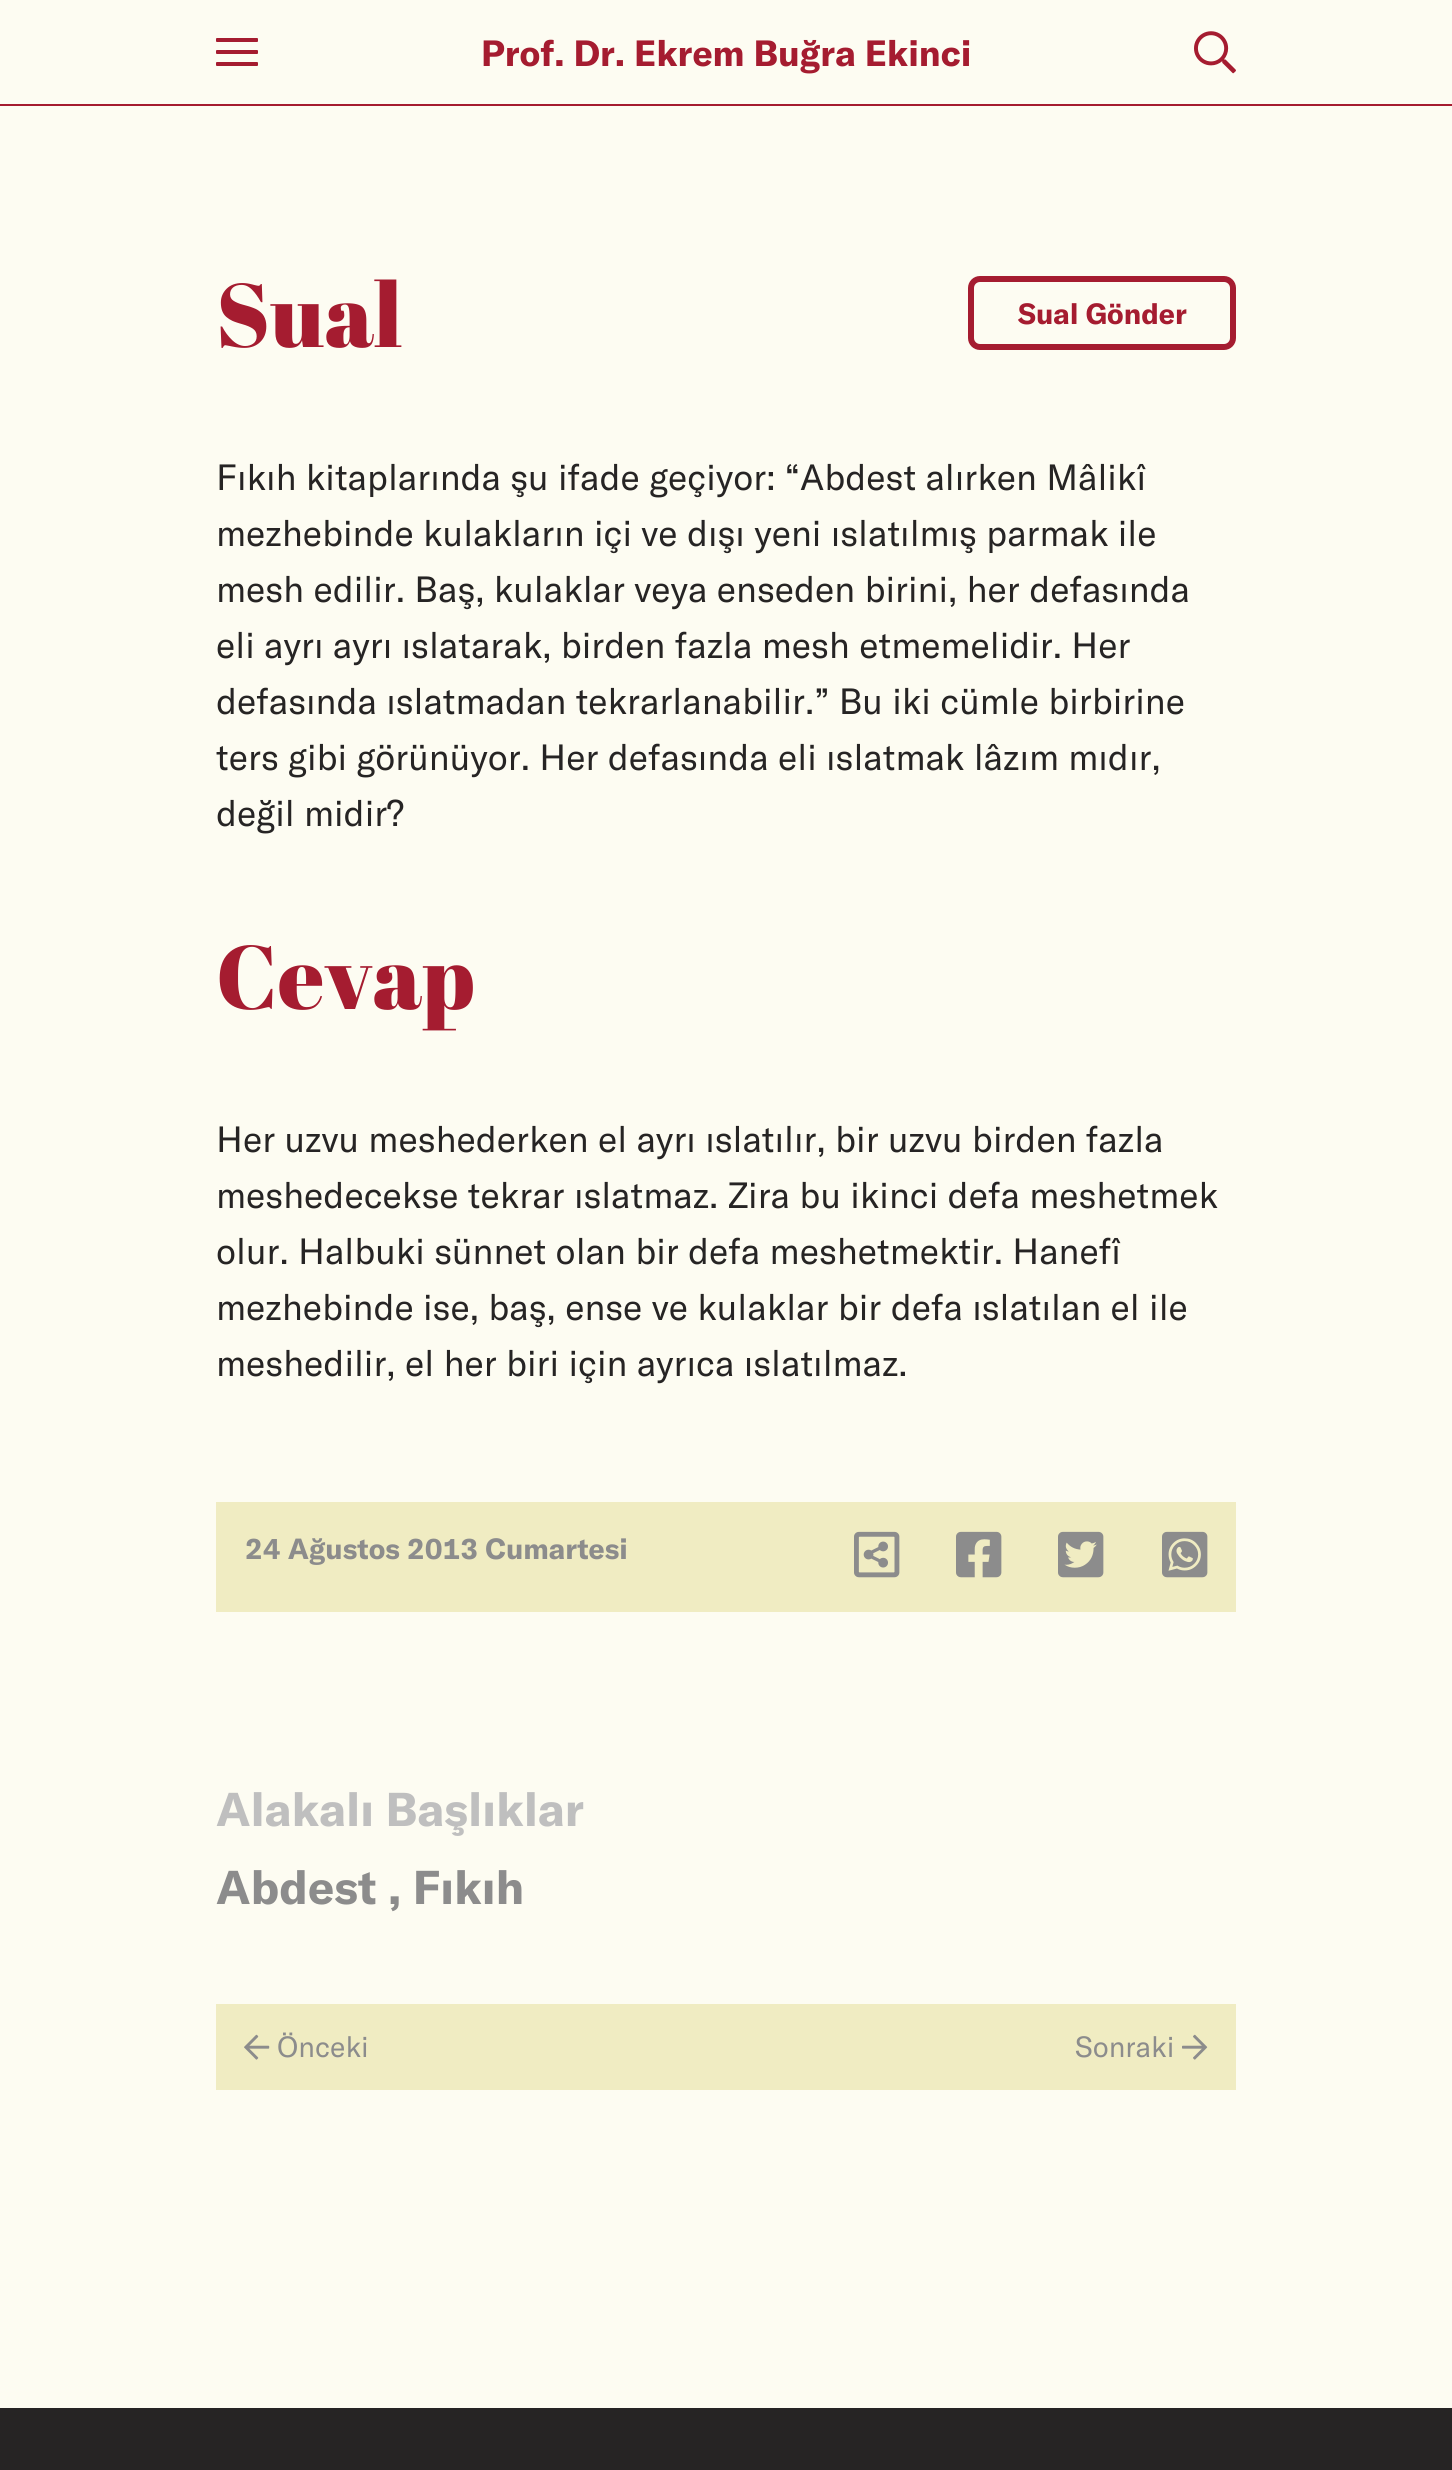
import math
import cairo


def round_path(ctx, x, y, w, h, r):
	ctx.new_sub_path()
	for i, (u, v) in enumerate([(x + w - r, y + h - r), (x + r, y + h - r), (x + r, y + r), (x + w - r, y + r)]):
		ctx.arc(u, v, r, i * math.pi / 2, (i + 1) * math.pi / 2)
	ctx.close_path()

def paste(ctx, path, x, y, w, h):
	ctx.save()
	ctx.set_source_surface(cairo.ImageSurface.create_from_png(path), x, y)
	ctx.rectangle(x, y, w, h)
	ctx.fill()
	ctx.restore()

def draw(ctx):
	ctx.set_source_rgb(0.992, 0.988, 0.949)
	ctx.paint()
	ctx.set_source_rgb(0.647, 0.11, 0.188)
	ctx.rectangle(0, 104, 1452, 2)
	ctx.fill()
	round_path(ctx, 216, 62, 42, 4, 1)
	ctx.fill()
	round_path(ctx, 216, 38, 42, 4, 1)
	ctx.fill()
	round_path(ctx, 216, 50, 42, 4, 1)
	ctx.fill()
	ctx.select_font_face('GT America', cairo.FONT_SLANT_NORMAL, cairo.FONT_WEIGHT_BOLD)
	ctx.set_font_size(36)
	ctx.move_to(481, 66)
	ctx.show_text('Prof. Dr. Ekrem Buğra Ekinci')
	paste(ctx, 'media/1.png', 1194, 31, 42, 43)
	ctx.select_font_face('Abril Fatface')
	ctx.set_font_size(90)
	ctx.move_to(216, 347)
	ctx.show_text('Sual')
	round_path(ctx, 971, 279, 262, 68, 9)
	ctx.set_line_width(6)
	ctx.stroke()
	ctx.select_font_face('GT America', cairo.FONT_SLANT_NORMAL, cairo.FONT_WEIGHT_BOLD)
	ctx.set_font_size(28.75)
	ctx.move_to(1018, 324)
	ctx.show_text('Sual Gönder')
	ctx.select_font_face('GT America')
	ctx.set_font_size(36)
	ctx.set_source_rgb(0.149, 0.141, 0.141)
	for x, y, s in [
		(216, 490, 'Fıkıh kitaplarında şu ifade geçiyor: “Abdest alırken Mâlikî'),
		(216, 546, 'mezhebinde kulakların içi ve dışı yeni ıslatılmış parmak ile'),
		(216, 602, 'mesh edilir. Baş, kulaklar veya enseden birini, her defasında'),
		(216, 658, 'eli ayrı ayrı ıslatarak, birden fazla mesh etmemelidir. Her'),
		(216, 714, 'defasında ıslatmadan tekrarlanabilir.” Bu iki cümle birbirine'),
		(216, 770, 'ters gibi görünüyor. Her defasında eli ıslatmak lâzım mıdır,'),
		(216, 826, 'değil midir?'),
	]:
		ctx.move_to(x, y)
		ctx.show_text(s)
	ctx.select_font_face('Abril Fatface')
	ctx.set_font_size(90)
	ctx.set_source_rgb(0.647, 0.11, 0.188)
	ctx.move_to(216, 1009)
	ctx.show_text('Cevap')
	ctx.select_font_face('GT America')
	ctx.set_font_size(36)
	ctx.set_source_rgb(0.149, 0.141, 0.141)
	for x, y, s in [
		(216, 1152, 'Her uzvu meshederken el ayrı ıslatılır, bir uzvu birden fazla'),
		(216, 1208, 'meshedecekse tekrar ıslatmaz. Zira bu ikinci defa meshetmek'),
		(216, 1264, 'olur. Halbuki sünnet olan bir defa meshetmektir. Hanefî'),
		(216, 1320, 'mezhebinde ise, baş, ense ve kulaklar bir defa ıslatılan el ile'),
		(216, 1376, 'meshedilir, el her biri için ayrıca ıslatılmaz.'),
	]:
		ctx.move_to(x, y)
		ctx.show_text(s)
	ctx.set_source_rgb(0.941, 0.925, 0.761)
	ctx.rectangle(216, 1502, 1020, 110)
	ctx.fill()
	ctx.select_font_face('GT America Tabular', cairo.FONT_SLANT_NORMAL, cairo.FONT_WEIGHT_BOLD)
	ctx.set_font_size(28.75)
	ctx.set_source_rgb(0.549, 0.549, 0.549)
	ctx.move_to(245, 1559)
	ctx.show_text('24 Ağustos 2013 Cumartesi')
	paste(ctx, 'media/2.png', 854, 1531, 46, 47)
	paste(ctx, 'media/3.png', 956, 1531, 46, 47)
	paste(ctx, 'media/4.png', 1058, 1531, 46, 47)
	paste(ctx, 'media/5.png', 1162, 1531, 46, 47)
	ctx.select_font_face('GT America', cairo.FONT_SLANT_NORMAL, cairo.FONT_WEIGHT_BOLD)
	ctx.set_font_size(46.75)
	ctx.set_source_rgb(0.749, 0.749, 0.749)
	ctx.move_to(216, 1826)
	ctx.show_text('Alakalı Başlıklar')
	ctx.set_source_rgb(0.549, 0.549, 0.549)
	ctx.move_to(216, 1904)
	ctx.show_text('Abdest , Fıkıh')
	ctx.set_source_rgb(0.941, 0.925, 0.761)
	ctx.rectangle(216, 2004, 1020, 86)
	ctx.fill()
	paste(ctx, 'media/6.png', 244, 2034, 26, 26)
	ctx.select_font_face('GT America')
	ctx.set_font_size(28.75)
	ctx.set_source_rgb(0.549, 0.549, 0.549)
	ctx.move_to(277, 2057)
	ctx.show_text('Önceki')
	ctx.move_to(1075, 2057)
	ctx.show_text('Sonraki')
	paste(ctx, 'media/7.png', 1182, 2034, 26, 26)
	ctx.set_source_rgb(0.149, 0.141, 0.141)
	ctx.rectangle(0, 2408, 1452, 62)
	ctx.fill()


surface = cairo.ImageSurface(cairo.FORMAT_RGB24, 1452, 2470)
ctx = cairo.Context(surface)
options = cairo.FontOptions()
options.set_hint_metrics(cairo.HINT_METRICS_OFF)
options.set_hint_style(cairo.HINT_STYLE_NONE)
ctx.set_font_options(options)
ctx.set_miter_limit(4)
draw(ctx)
surface.write_to_png('image.png')
